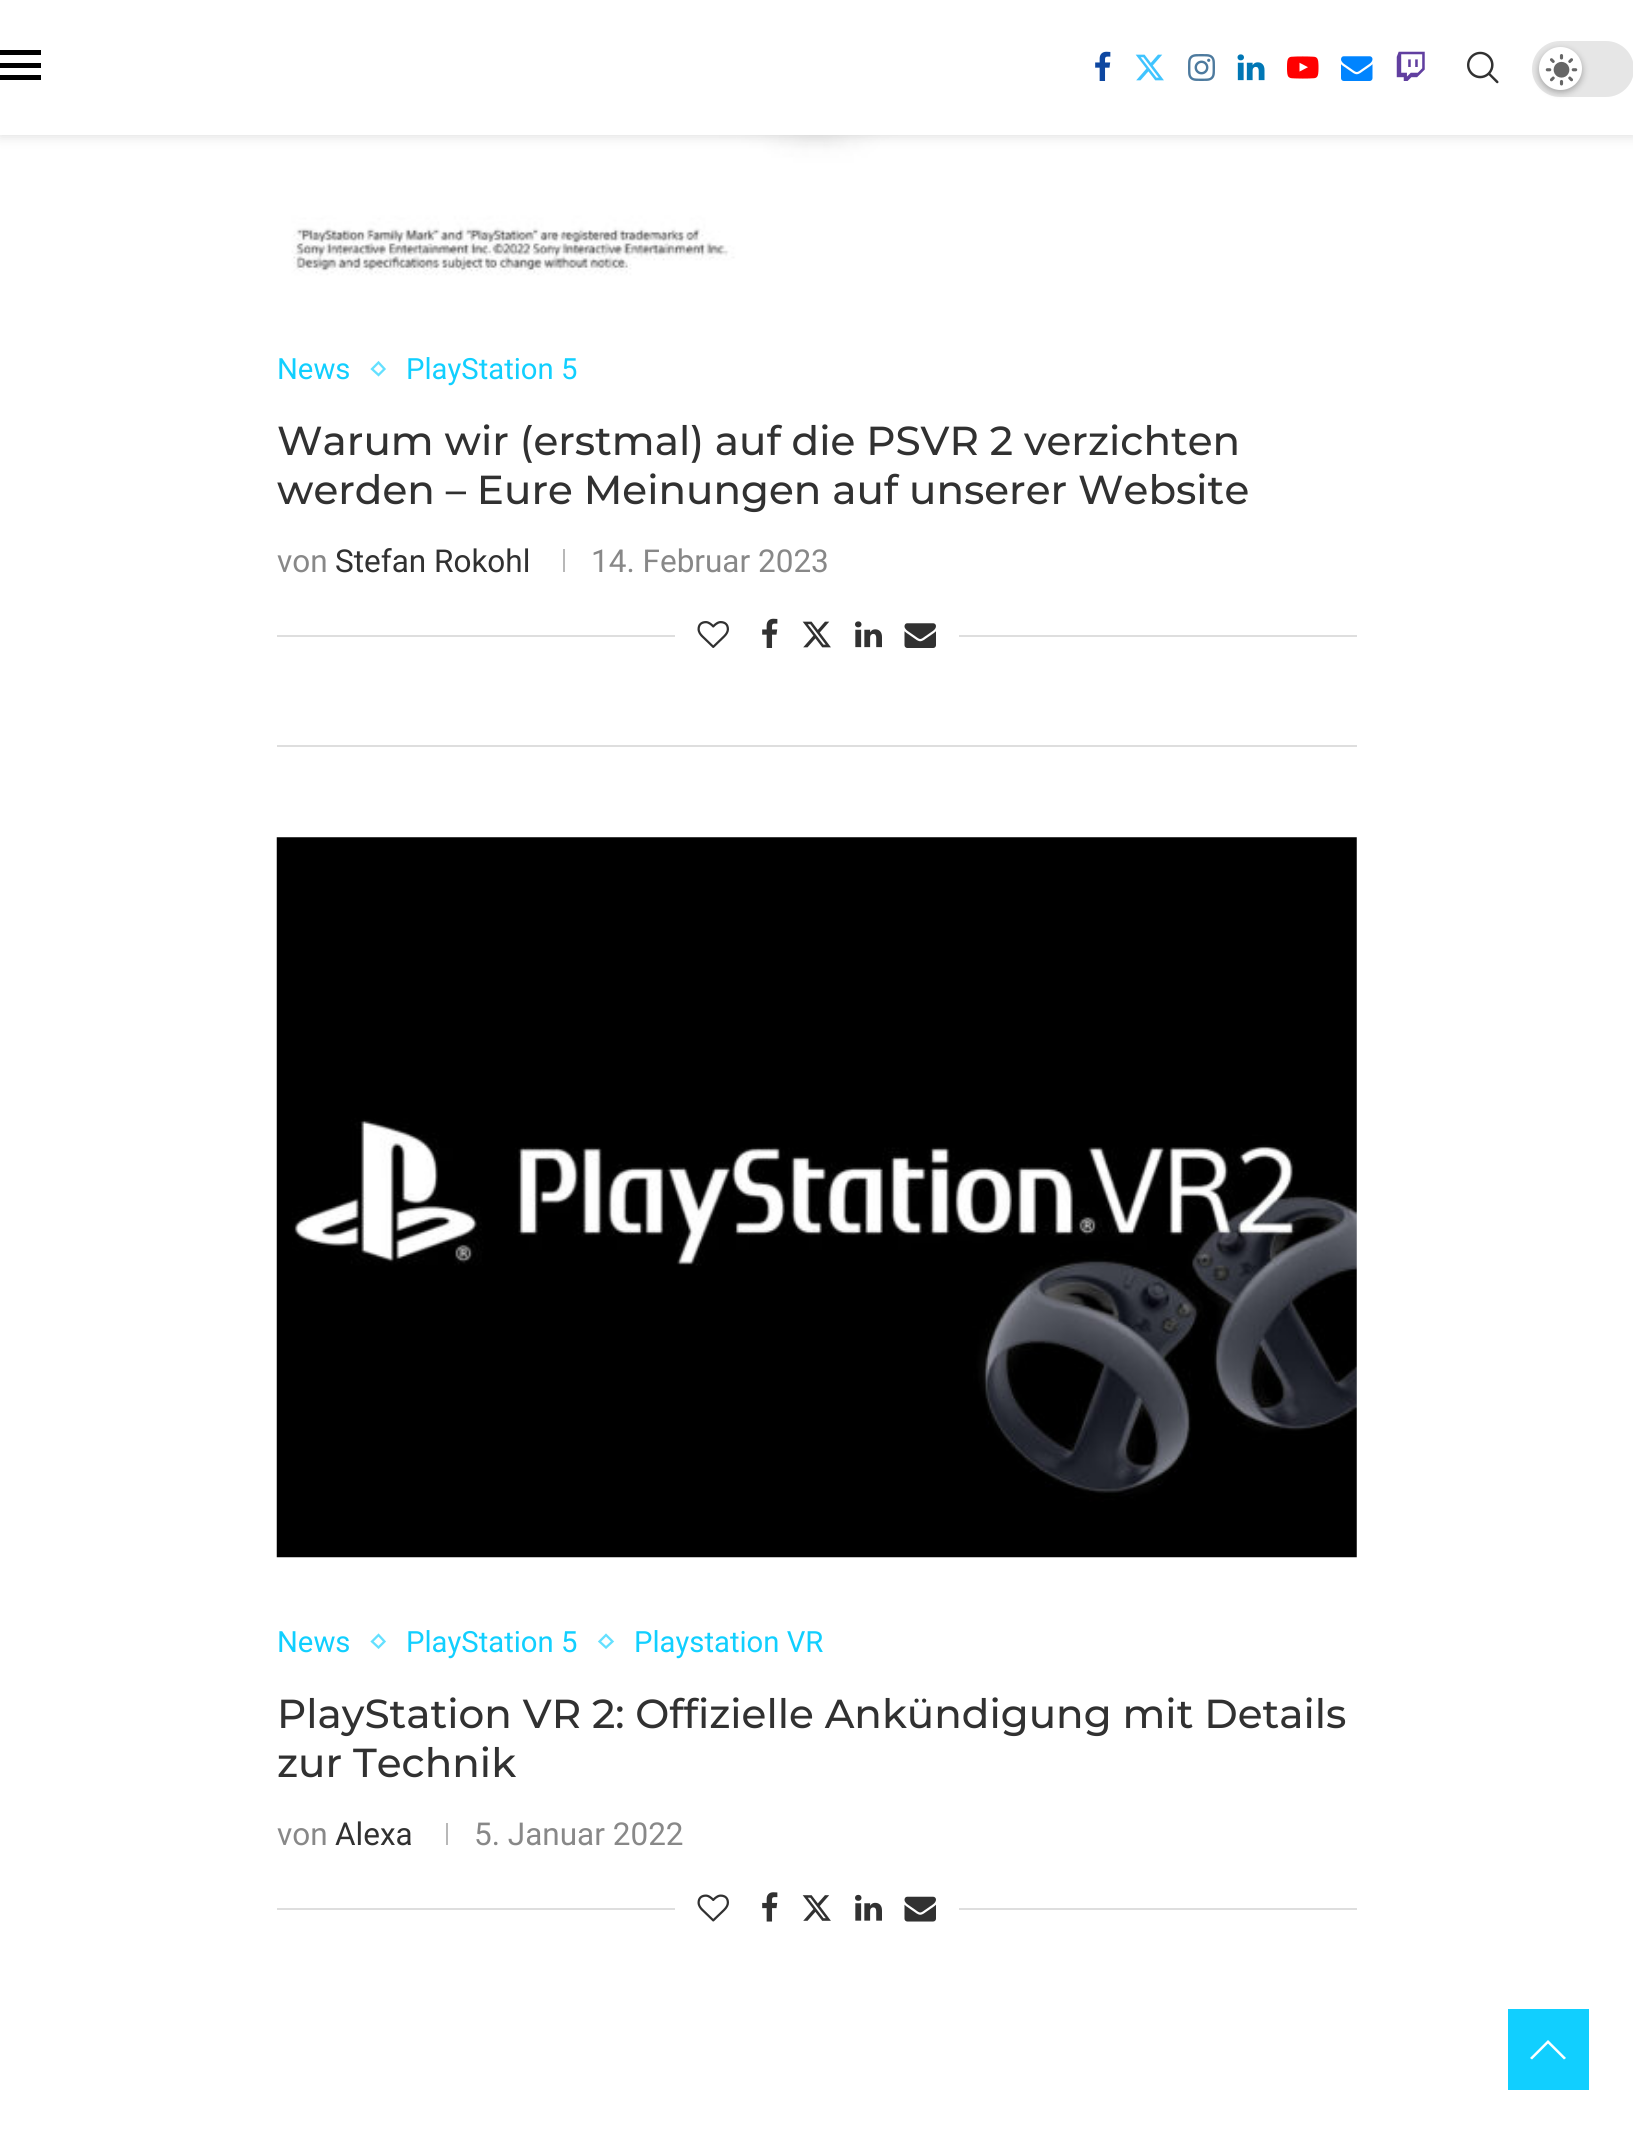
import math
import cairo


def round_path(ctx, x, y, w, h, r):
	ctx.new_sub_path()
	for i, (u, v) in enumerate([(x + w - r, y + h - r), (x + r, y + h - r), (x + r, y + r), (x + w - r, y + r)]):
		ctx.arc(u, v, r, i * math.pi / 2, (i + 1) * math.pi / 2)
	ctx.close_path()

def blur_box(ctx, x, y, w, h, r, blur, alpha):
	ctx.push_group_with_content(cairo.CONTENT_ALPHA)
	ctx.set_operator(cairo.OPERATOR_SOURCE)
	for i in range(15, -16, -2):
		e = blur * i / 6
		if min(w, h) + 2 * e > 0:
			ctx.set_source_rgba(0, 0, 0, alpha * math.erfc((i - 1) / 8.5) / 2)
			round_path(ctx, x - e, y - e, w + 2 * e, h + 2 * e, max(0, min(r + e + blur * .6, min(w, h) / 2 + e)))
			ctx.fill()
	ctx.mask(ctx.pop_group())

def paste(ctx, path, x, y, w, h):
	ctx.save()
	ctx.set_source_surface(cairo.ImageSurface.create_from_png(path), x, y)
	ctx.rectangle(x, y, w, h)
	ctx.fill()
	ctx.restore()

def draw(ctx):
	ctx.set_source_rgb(1, 1, 1)
	ctx.paint()
	paste(ctx, 'media/10.png', 277, 135, 1080, 151)
	ctx.set_source_rgb(0.745, 0.745, 0.745)
	blur_box(ctx, 0, 2, 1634, 135, 0, 5.5, 0.46)
	ctx.set_source_rgb(1, 1, 1)
	ctx.rectangle(0, 0, 1633, 135)
	ctx.fill()
	ctx.set_source_rgb(0, 0, 0)
	ctx.rectangle(0, 50, 41, 5)
	ctx.rectangle(0, 63, 41, 5)
	ctx.rectangle(0, 75, 41, 5)
	ctx.fill()
	paste(ctx, 'media/1.png', 1095, 51, 16, 30)
	paste(ctx, 'media/2.png', 1135, 54, 29, 27)
	paste(ctx, 'media/3.png', 1188, 54, 27, 27)
	paste(ctx, 'media/4.png', 1237, 54, 28, 27)
	paste(ctx, 'media/5.png', 1287, 56, 32, 23)
	paste(ctx, 'media/6.png', 1341, 56, 32, 25)
	paste(ctx, 'media/7.png', 1396, 51, 29, 30)
	paste(ctx, 'media/8.png', 1467, 51, 32, 33)
	ctx.set_source_rgb(0.902, 0.902, 0.902)
	round_path(ctx, 1532, 41, 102, 56, 28)
	ctx.fill()
	ctx.set_source_rgb(0, 0, 0)
	blur_box(ctx, 1539, 50, 43, 42, 21, 3.5, 0.3)
	ctx.set_source_rgb(1, 1, 1)
	ctx.arc(1560.5, 68.5, 21.5, 0, 2 * math.pi)
	ctx.fill()
	paste(ctx, 'media/9.png', 1545, 54, 33, 32)
	ctx.set_source_rgb(0.871, 0.871, 0.871)
	ctx.rectangle(277, 745, 1080, 2)
	ctx.fill()
	ctx.select_font_face('Roboto')
	ctx.set_font_size(29.25)
	ctx.set_source_rgb(0.067, 0.812, 1)
	ctx.move_to(277, 379)
	ctx.show_text('News')
	ctx.new_path()
	ctx.move_to(378.5, 362.5)
	ctx.line_to(384.5, 369)
	ctx.line_to(378.5, 375)
	ctx.line_to(372, 369)
	ctx.close_path()
	ctx.set_source_rgb(0.392, 0.878, 1)
	ctx.set_line_width(2.3)
	ctx.stroke()
	ctx.set_source_rgb(0.067, 0.812, 1)
	ctx.move_to(406, 379)
	ctx.show_text('PlayStation 5')
	ctx.select_font_face('Montserrat Medium')
	ctx.set_font_size(40.5)
	ctx.set_source_rgb(0.192, 0.192, 0.192)
	ctx.move_to(277, 455)
	ctx.show_text('Warum wir (erstmal) auf die PSVR 2 verzichten')
	ctx.move_to(277, 504)
	ctx.show_text('werden – Eure Meinungen auf unserer Website')
	ctx.select_font_face('Roboto')
	ctx.set_font_size(31.5)
	ctx.set_source_rgb(0.533, 0.533, 0.533)
	ctx.move_to(277, 572)
	ctx.show_text('von')
	ctx.set_source_rgb(0.192, 0.192, 0.192)
	ctx.move_to(335, 572)
	ctx.show_text('Stefan Rokohl')
	ctx.set_source_rgb(0.722, 0.722, 0.722)
	ctx.rectangle(563, 549, 2, 23)
	ctx.fill()
	ctx.set_source_rgb(0.533, 0.533, 0.533)
	ctx.move_to(591, 572)
	ctx.show_text('14. Februar 2023')
	ctx.set_source_rgb(0.871, 0.871, 0.871)
	ctx.rectangle(277, 635, 1080, 2)
	ctx.fill()
	ctx.set_source_rgb(1, 1, 1)
	ctx.rectangle(675, 635, 284, 2)
	ctx.fill()
	paste(ctx, 'media/11.png', 697, 621, 32, 27)
	paste(ctx, 'media/12.png', 762, 618, 16, 30)
	paste(ctx, 'media/13.png', 802, 621, 29, 27)
	paste(ctx, 'media/14.png', 855, 621, 27, 27)
	paste(ctx, 'media/15.png', 904, 623, 32, 25)
	ctx.set_source_rgb(0.961, 0.961, 0.961)
	ctx.rectangle(277, 837, 1080, 720)
	ctx.fill()
	paste(ctx, 'media/16.png', 276, 837, 1081, 721)
	ctx.set_font_size(29.25)
	ctx.set_source_rgb(0.067, 0.812, 1)
	ctx.move_to(277, 1652)
	ctx.show_text('News')
	ctx.new_path()
	ctx.move_to(378.5, 1635)
	ctx.line_to(384.5, 1641.5)
	ctx.line_to(378.5, 1647.5)
	ctx.line_to(372, 1641.5)
	ctx.close_path()
	ctx.set_source_rgb(0.392, 0.878, 1)
	ctx.stroke()
	ctx.set_source_rgb(0.067, 0.812, 1)
	ctx.move_to(406, 1652)
	ctx.show_text('PlayStation 5')
	ctx.new_path()
	ctx.move_to(606, 1635)
	ctx.line_to(612.5, 1641.5)
	ctx.line_to(606, 1647.5)
	ctx.line_to(599.5, 1641.5)
	ctx.close_path()
	ctx.set_source_rgb(0.392, 0.878, 1)
	ctx.stroke()
	ctx.set_source_rgb(0.067, 0.812, 1)
	ctx.move_to(634, 1652)
	ctx.show_text('Playstation VR')
	ctx.select_font_face('Montserrat Medium')
	ctx.set_font_size(40.5)
	ctx.set_source_rgb(0.192, 0.192, 0.192)
	ctx.move_to(277, 1728)
	ctx.show_text('PlayStation VR 2: Offizielle Ankündigung mit Details')
	ctx.move_to(277, 1777)
	ctx.show_text('zur Technik')
	ctx.select_font_face('Roboto')
	ctx.set_font_size(31.5)
	ctx.set_source_rgb(0.533, 0.533, 0.533)
	ctx.move_to(277, 1845)
	ctx.show_text('von')
	ctx.set_source_rgb(0.192, 0.192, 0.192)
	ctx.move_to(335, 1845)
	ctx.show_text('Alexa')
	ctx.set_source_rgb(0.722, 0.722, 0.722)
	ctx.rectangle(446, 1823, 2, 22)
	ctx.fill()
	ctx.set_source_rgb(0.533, 0.533, 0.533)
	ctx.move_to(474, 1845)
	ctx.show_text('5. Januar 2022')
	ctx.set_source_rgb(0.871, 0.871, 0.871)
	ctx.rectangle(277, 1908, 1080, 2)
	ctx.fill()
	ctx.set_source_rgb(1, 1, 1)
	ctx.rectangle(675, 1908, 284, 2)
	ctx.fill()
	paste(ctx, 'media/17.png', 697, 1894, 32, 28)
	paste(ctx, 'media/18.png', 762, 1892, 16, 30)
	paste(ctx, 'media/19.png', 802, 1895, 29, 26)
	paste(ctx, 'media/20.png', 855, 1894, 27, 27)
	paste(ctx, 'media/21.png', 904, 1896, 32, 26)
	ctx.set_source_rgb(0.067, 0.812, 1)
	ctx.rectangle(1508, 2009, 81, 81)
	ctx.fill()
	ctx.set_source_rgb(1, 1, 1)
	ctx.new_path()
	ctx.move_to(1548, 2040)
	ctx.line_to(1530, 2058)
	ctx.line_to(1532, 2059.5)
	ctx.line_to(1548, 2043.5)
	ctx.line_to(1564, 2059.5)
	ctx.line_to(1566, 2058)
	ctx.close_path()
	ctx.fill()


surface = cairo.ImageSurface(cairo.FORMAT_RGB24, 1633, 2135)
ctx = cairo.Context(surface)
options = cairo.FontOptions()
options.set_hint_metrics(cairo.HINT_METRICS_OFF)
options.set_hint_style(cairo.HINT_STYLE_NONE)
ctx.set_font_options(options)
ctx.set_miter_limit(4)
draw(ctx)
surface.write_to_png('image.png')
